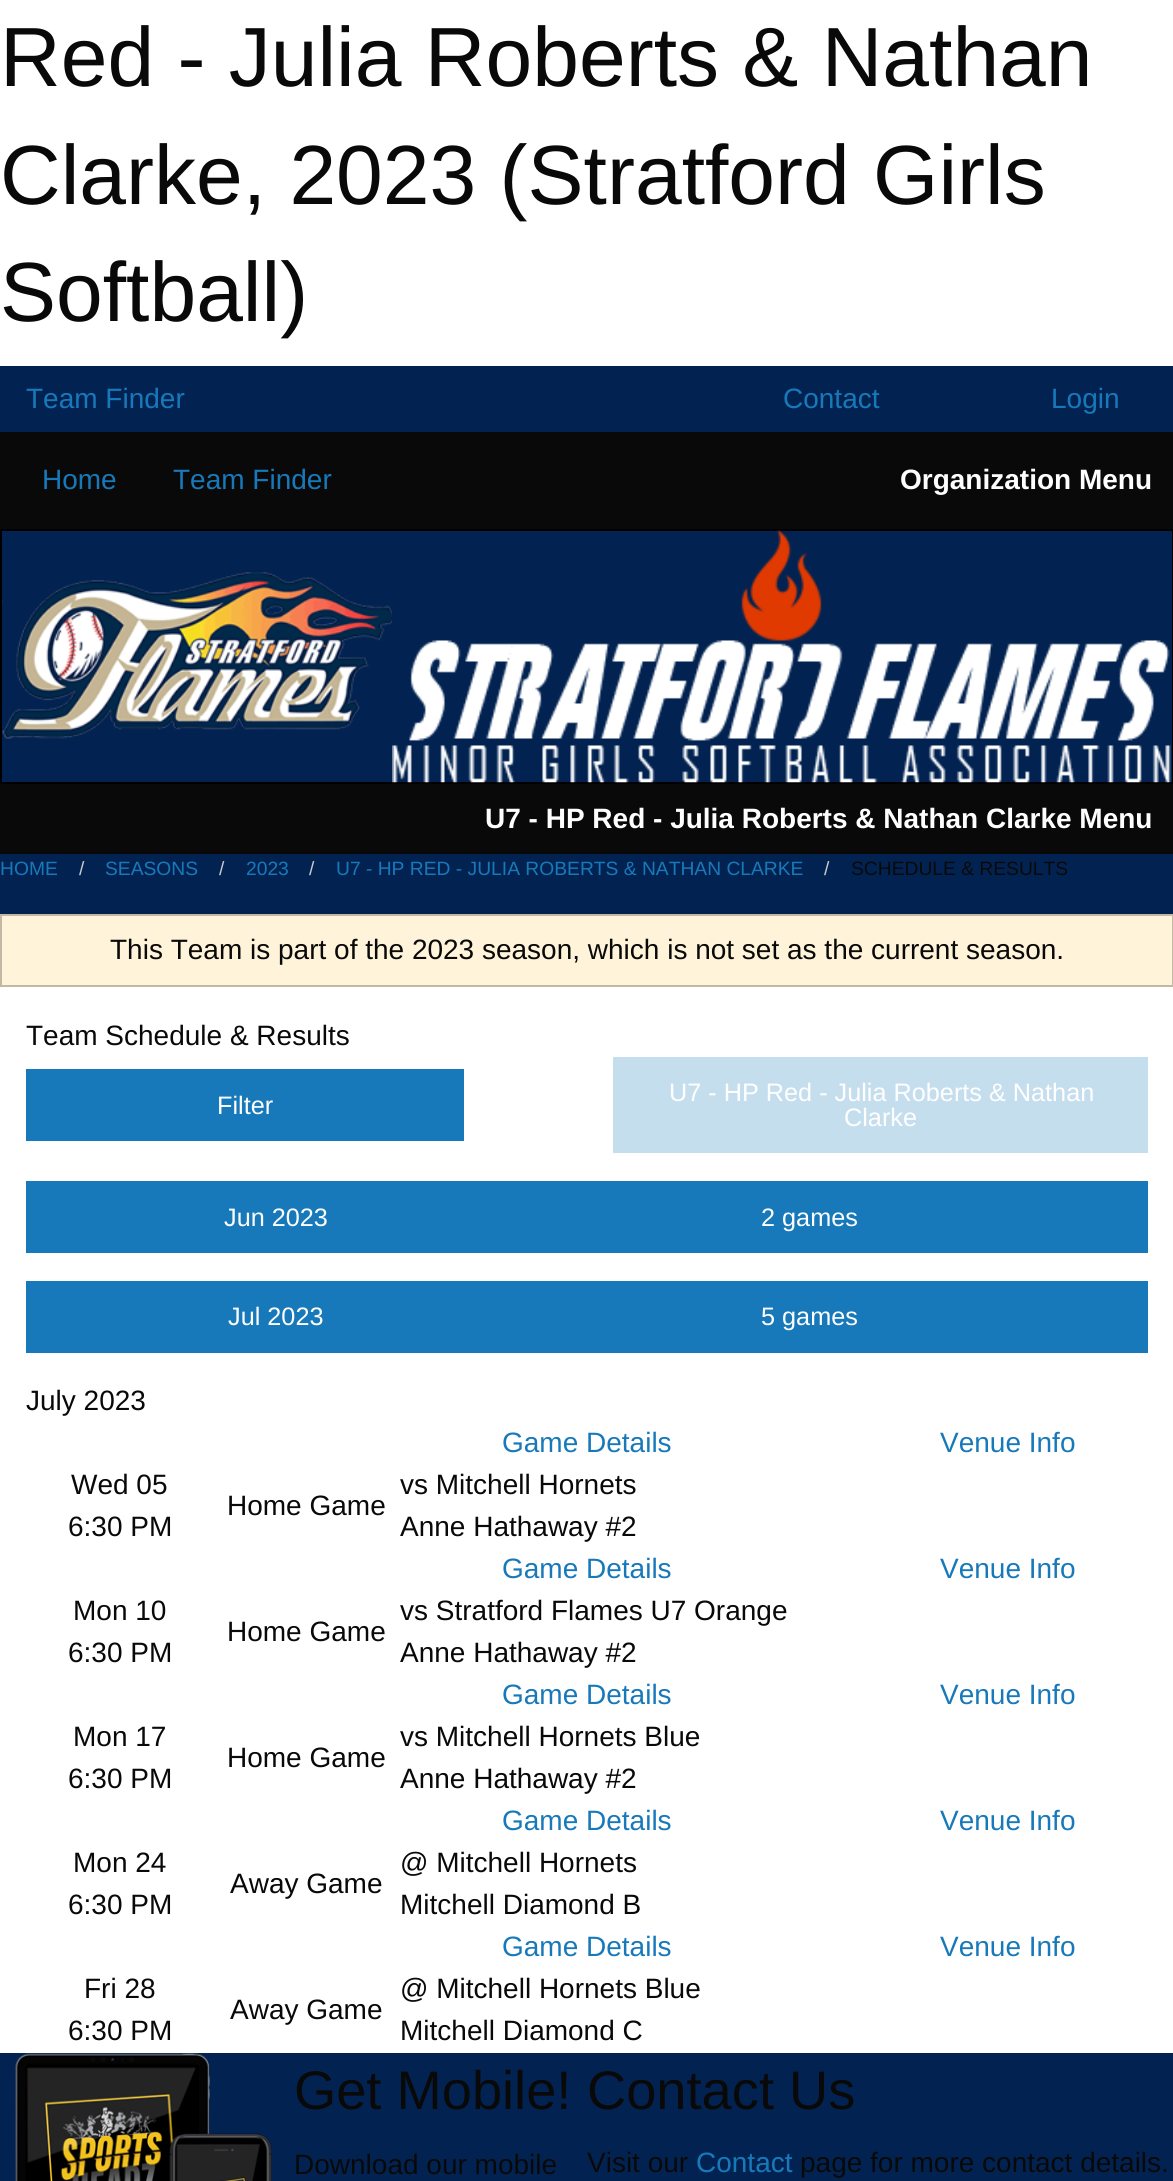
import math
import cairo


def paste(ctx, path, x, y, w, h):
	ctx.save()
	ctx.set_source_surface(cairo.ImageSurface.create_from_png(path), x, y)
	ctx.rectangle(x, y, w, h)
	ctx.fill()
	ctx.restore()

def draw(ctx):
	ctx.set_source_rgb(1, 1, 1)
	ctx.paint()
	ctx.select_font_face('Liberation Sans')
	ctx.set_font_size(84)
	ctx.set_source_rgb(0.039, 0.039, 0.039)
	for x, y, s in [
		(0, 86, 'Red - Julia Roberts & Nathan'),
		(0, 204, 'Clarke, 2023 (Stratford Girls'),
		(0, 321, 'Softball)'),
	]:
		ctx.move_to(x, y)
		ctx.show_text(s)
	ctx.set_source_rgb(0.008, 0.137, 0.318)
	ctx.rectangle(0, 366, 1173, 1815)
	ctx.fill()
	ctx.set_font_size(28)
	ctx.set_source_rgb(0.09, 0.475, 0.729)
	for x, y, s in [
		(26, 408, 'Team Finder'),
		(783, 408, 'Contact'),
		(1051, 408, 'Login'),
	]:
		ctx.move_to(x, y)
		ctx.show_text(s)
	ctx.set_source_rgb(0.039, 0.039, 0.039)
	ctx.rectangle(0, 432, 1173, 97)
	ctx.fill()
	ctx.set_source_rgb(0.09, 0.475, 0.729)
	ctx.move_to(42, 489)
	ctx.show_text('Home')
	ctx.move_to(173, 489)
	ctx.show_text('Team Finder')
	ctx.select_font_face('Liberation Sans', cairo.FONT_SLANT_NORMAL, cairo.FONT_WEIGHT_BOLD)
	ctx.set_source_rgb(0.996, 0.996, 0.996)
	ctx.move_to(900, 489)
	ctx.show_text('Organization Menu')
	ctx.rectangle(1, 530, 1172, 253)
	ctx.set_source_rgb(0, 0, 0)
	ctx.stroke()
	paste(ctx, 'media/1.png', 1, 572, 391, 167)
	paste(ctx, 'media/2.png', 392, 530, 779, 253)
	ctx.set_source_rgb(0.039, 0.039, 0.039)
	ctx.rectangle(0, 784, 1173, 70)
	ctx.fill()
	ctx.set_source_rgb(0.996, 0.996, 0.996)
	ctx.move_to(485, 828)
	ctx.show_text('U7 - HP Red - Julia Roberts & Nathan Clarke Menu')
	ctx.select_font_face('Liberation Sans')
	ctx.set_font_size(19.25)
	ctx.set_source_rgb(0.09, 0.475, 0.729)
	ctx.move_to(0, 875)
	ctx.show_text('HOME')
	ctx.set_source_rgb(0.792, 0.792, 0.792)
	ctx.move_to(79, 875)
	ctx.show_text('/')
	ctx.set_source_rgb(0.09, 0.475, 0.729)
	ctx.move_to(105, 875)
	ctx.show_text('SEASONS')
	ctx.set_source_rgb(0.792, 0.792, 0.792)
	ctx.move_to(219, 875)
	ctx.show_text('/')
	ctx.set_source_rgb(0.09, 0.475, 0.729)
	ctx.move_to(246, 875)
	ctx.show_text('2023')
	ctx.set_source_rgb(0.792, 0.792, 0.792)
	ctx.move_to(309, 875)
	ctx.show_text('/')
	ctx.set_source_rgb(0.09, 0.475, 0.729)
	ctx.move_to(336, 875)
	ctx.show_text('U7 - HP RED - JULIA ROBERTS & NATHAN CLARKE')
	ctx.set_source_rgb(0.792, 0.792, 0.792)
	ctx.move_to(824, 875)
	ctx.show_text('/')
	ctx.set_source_rgb(0.039, 0.039, 0.039)
	ctx.move_to(851, 875)
	ctx.show_text('SCHEDULE & RESULTS')
	ctx.set_source_rgb(1, 1, 1)
	ctx.rectangle(0, 987, 1173, 1066)
	ctx.fill()
	ctx.set_source_rgb(1, 0.953, 0.851)
	ctx.rectangle(1, 915, 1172, 71)
	ctx.fill_preserve()
	ctx.set_source_rgb(0.761, 0.725, 0.647)
	ctx.stroke()
	ctx.set_font_size(28)
	ctx.set_source_rgb(0.039, 0.039, 0.039)
	ctx.move_to(110, 959)
	ctx.show_text('This Team is part of the 2023 season, which is not set as the current season.')
	ctx.move_to(26, 1045)
	ctx.show_text('Team Schedule & Results')
	ctx.set_source_rgb(0.09, 0.475, 0.729)
	ctx.rectangle(26, 1069, 438, 72)
	ctx.fill()
	ctx.set_font_size(25.25)
	ctx.set_source_rgb(0.996, 0.996, 0.996)
	ctx.move_to(217, 1114)
	ctx.show_text('Filter')
	ctx.set_source_rgb(0.773, 0.871, 0.933)
	ctx.rectangle(613, 1057, 535, 96)
	ctx.fill()
	ctx.set_source_rgb(0.996, 0.996, 0.996)
	ctx.move_to(669, 1101)
	ctx.show_text('U7 - HP Red - Julia Roberts & Nathan')
	ctx.move_to(844, 1126)
	ctx.show_text('Clarke')
	ctx.set_source_rgb(0.09, 0.475, 0.729)
	ctx.rectangle(26, 1181, 1122, 72)
	ctx.fill()
	ctx.set_source_rgb(0.996, 0.996, 0.996)
	ctx.move_to(224, 1226)
	ctx.show_text('Jun 2023')
	ctx.move_to(761, 1226)
	ctx.show_text('2 games')
	ctx.set_source_rgb(0.09, 0.475, 0.729)
	ctx.rectangle(26, 1281, 1122, 72)
	ctx.fill()
	ctx.set_source_rgb(0.996, 0.996, 0.996)
	ctx.move_to(228, 1325)
	ctx.show_text('Jul 2023')
	ctx.move_to(761, 1325)
	ctx.show_text('5 games')
	ctx.set_font_size(28)
	ctx.set_source_rgb(0.039, 0.039, 0.039)
	ctx.move_to(26, 1410)
	ctx.show_text('July 2023')
	ctx.set_source_rgb(0.09, 0.475, 0.729)
	ctx.move_to(502, 1452)
	ctx.show_text('Game Details')
	ctx.move_to(940, 1452)
	ctx.show_text('Venue Info')
	ctx.set_source_rgb(0.039, 0.039, 0.039)
	for x, y, s in [
		(71, 1494, 'Wed 05'),
		(68, 1536, '6:30 PM'),
		(227, 1515, 'Home Game'),
		(400, 1494, 'vs Mitchell Hornets'),
		(400, 1536, 'Anne Hathaway #2'),
	]:
		ctx.move_to(x, y)
		ctx.show_text(s)
	ctx.set_source_rgb(0.09, 0.475, 0.729)
	ctx.move_to(502, 1578)
	ctx.show_text('Game Details')
	ctx.move_to(940, 1578)
	ctx.show_text('Venue Info')
	ctx.set_source_rgb(0.039, 0.039, 0.039)
	for x, y, s in [
		(73, 1620, 'Mon 10'),
		(68, 1662, '6:30 PM'),
		(227, 1641, 'Home Game'),
		(400, 1620, 'vs Stratford Flames U7 Orange'),
		(400, 1662, 'Anne Hathaway #2'),
	]:
		ctx.move_to(x, y)
		ctx.show_text(s)
	ctx.set_source_rgb(0.09, 0.475, 0.729)
	ctx.move_to(502, 1704)
	ctx.show_text('Game Details')
	ctx.move_to(940, 1704)
	ctx.show_text('Venue Info')
	ctx.set_source_rgb(0.039, 0.039, 0.039)
	for x, y, s in [
		(73, 1746, 'Mon 17'),
		(68, 1788, '6:30 PM'),
		(227, 1767, 'Home Game'),
		(400, 1746, 'vs Mitchell Hornets Blue'),
		(400, 1788, 'Anne Hathaway #2'),
	]:
		ctx.move_to(x, y)
		ctx.show_text(s)
	ctx.set_source_rgb(0.09, 0.475, 0.729)
	ctx.move_to(502, 1830)
	ctx.show_text('Game Details')
	ctx.move_to(940, 1830)
	ctx.show_text('Venue Info')
	ctx.set_source_rgb(0.039, 0.039, 0.039)
	for x, y, s in [
		(73, 1872, 'Mon 24'),
		(68, 1914, '6:30 PM'),
		(230, 1893, 'Away Game'),
		(400, 1872, '@ Mitchell Hornets'),
		(400, 1914, 'Mitchell Diamond B'),
	]:
		ctx.move_to(x, y)
		ctx.show_text(s)
	ctx.set_source_rgb(0.09, 0.475, 0.729)
	ctx.move_to(502, 1956)
	ctx.show_text('Game Details')
	ctx.move_to(940, 1956)
	ctx.show_text('Venue Info')
	ctx.set_source_rgb(0.039, 0.039, 0.039)
	for x, y, s in [
		(84, 1998, 'Fri 28'),
		(68, 2040, '6:30 PM'),
		(230, 2019, 'Away Game'),
		(400, 1998, '@ Mitchell Hornets Blue'),
		(400, 2040, 'Mitchell Diamond C'),
	]:
		ctx.move_to(x, y)
		ctx.show_text(s)
	paste(ctx, 'media/3.png', 15, 2053, 258, 128)
	ctx.set_font_size(54.25)
	ctx.move_to(294, 2109)
	ctx.show_text('Get Mobile!')
	ctx.set_font_size(28)
	ctx.move_to(294, 2174)
	ctx.show_text('Download our mobile')
	ctx.set_font_size(54.25)
	ctx.move_to(587, 2109)
	ctx.show_text('Contact Us')
	ctx.set_font_size(28)
	ctx.move_to(587, 2172)
	ctx.show_text('Visit our')
	ctx.set_source_rgb(0.09, 0.475, 0.729)
	ctx.move_to(696, 2172)
	ctx.show_text('Contact')
	ctx.set_source_rgb(0.039, 0.039, 0.039)
	ctx.move_to(800, 2172)
	ctx.show_text('page for more contact details.')


surface = cairo.ImageSurface(cairo.FORMAT_RGB24, 1173, 2181)
ctx = cairo.Context(surface)
options = cairo.FontOptions()
options.set_hint_metrics(cairo.HINT_METRICS_OFF)
options.set_hint_style(cairo.HINT_STYLE_NONE)
ctx.set_font_options(options)
ctx.set_miter_limit(4)
draw(ctx)
surface.write_to_png('image.png')
